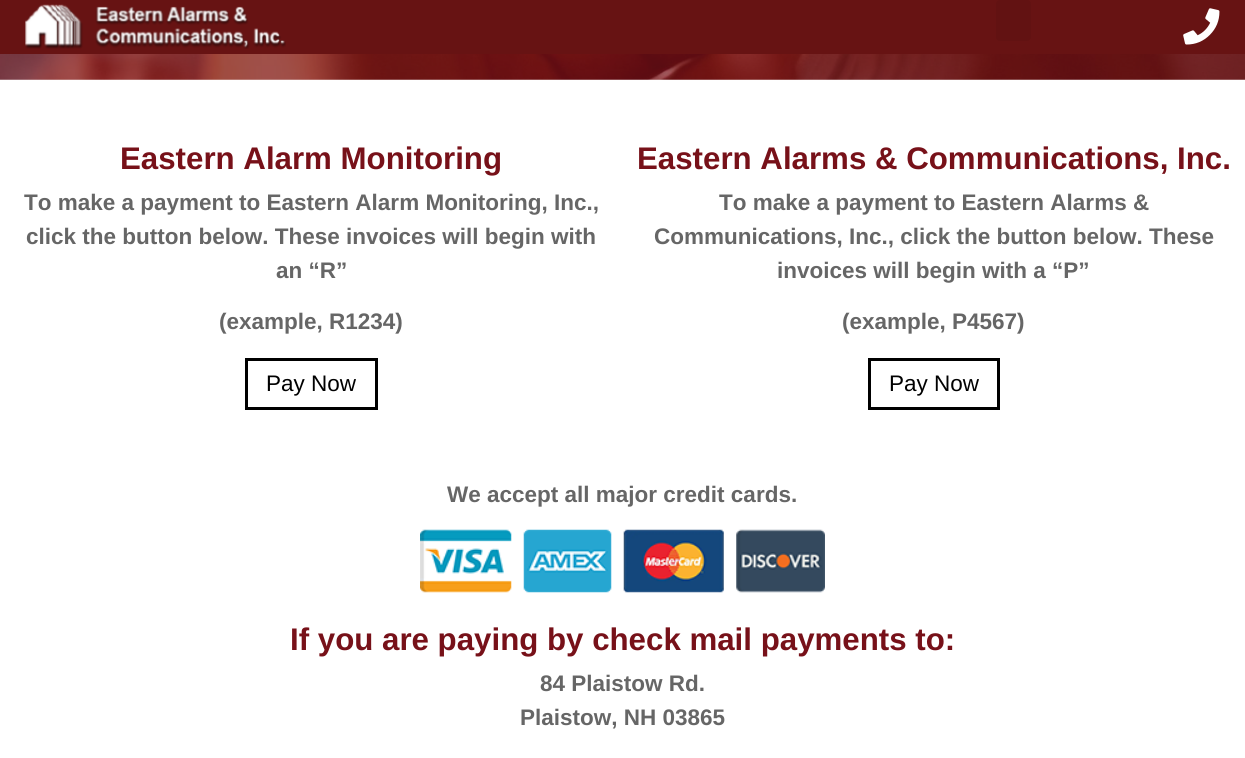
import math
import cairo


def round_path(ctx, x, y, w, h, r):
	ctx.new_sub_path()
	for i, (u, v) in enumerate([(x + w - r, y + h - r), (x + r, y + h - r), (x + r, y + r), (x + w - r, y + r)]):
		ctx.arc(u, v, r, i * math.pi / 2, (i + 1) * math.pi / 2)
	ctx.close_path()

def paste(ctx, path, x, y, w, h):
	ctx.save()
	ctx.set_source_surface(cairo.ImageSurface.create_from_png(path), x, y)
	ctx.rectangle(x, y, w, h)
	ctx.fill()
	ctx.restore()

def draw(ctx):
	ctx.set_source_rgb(1, 1, 1)
	ctx.paint()
	ctx.set_source_rgb(0.404, 0.075, 0.075)
	ctx.rectangle(0, 0, 1245, 54)
	ctx.fill()
	paste(ctx, 'media/1.png', 25, 4, 261, 45)
	ctx.set_source_rgb(0.384, 0.071, 0.071)
	round_path(ctx, 996, 0, 35, 41, 4)
	ctx.fill()
	paste(ctx, 'media/2.png', 1183, 8, 37, 37)
	paste(ctx, 'media/3.png', 0, 54, 1245, 26)
	ctx.select_font_face('Liberation Sans', cairo.FONT_SLANT_NORMAL, cairo.FONT_WEIGHT_BOLD)
	ctx.set_font_size(31.25)
	ctx.set_source_rgb(0.467, 0.067, 0.098)
	ctx.move_to(120, 169)
	ctx.show_text('Eastern Alarm Monitoring')
	ctx.set_font_size(22.5)
	ctx.set_source_rgb(0.4, 0.4, 0.4)
	for x, y, s in [
		(24, 210, 'To make a payment to Eastern Alarm Monitoring, Inc.,'),
		(26, 244, 'click the button below. These invoices will begin with'),
		(276, 278, 'an “R”'),
		(219, 329, '(example, R1234)'),
	]:
		ctx.move_to(x, y)
		ctx.show_text(s)
	ctx.rectangle(246.5, 359.5, 130, 49)
	ctx.set_source_rgb(0, 0, 0)
	ctx.set_line_width(3)
	ctx.stroke()
	ctx.select_font_face('Liberation Sans')
	ctx.move_to(266, 391)
	ctx.show_text('Pay Now')
	ctx.select_font_face('Liberation Sans', cairo.FONT_SLANT_NORMAL, cairo.FONT_WEIGHT_BOLD)
	ctx.set_font_size(31.25)
	ctx.set_source_rgb(0.467, 0.067, 0.098)
	ctx.move_to(637, 169)
	ctx.show_text('Eastern Alarms & Communications, Inc.')
	ctx.set_font_size(22.5)
	ctx.set_source_rgb(0.4, 0.4, 0.4)
	for x, y, s in [
		(719, 210, 'To make a payment to Eastern Alarms &'),
		(654, 244, 'Communications, Inc., click the button below. These'),
		(777, 278, 'invoices will begin with a “P”'),
		(842, 329, '(example, P4567)'),
	]:
		ctx.move_to(x, y)
		ctx.show_text(s)
	ctx.rectangle(869.5, 359.5, 129, 49)
	ctx.set_source_rgb(0, 0, 0)
	ctx.stroke()
	ctx.select_font_face('Liberation Sans')
	ctx.move_to(889, 391)
	ctx.show_text('Pay Now')
	ctx.select_font_face('Liberation Sans', cairo.FONT_SLANT_NORMAL, cairo.FONT_WEIGHT_BOLD)
	ctx.set_source_rgb(0.4, 0.4, 0.4)
	ctx.move_to(447, 502)
	ctx.show_text('We accept all major credit cards.')
	paste(ctx, 'media/4.png', 420, 529, 92, 64)
	paste(ctx, 'media/5.png', 523, 529, 89, 64)
	paste(ctx, 'media/6.png', 623, 529, 101, 64)
	paste(ctx, 'media/7.png', 736, 529, 89, 64)
	ctx.set_font_size(31.25)
	ctx.set_source_rgb(0.467, 0.067, 0.098)
	ctx.move_to(290, 650)
	ctx.show_text('If you are paying by check mail payments to:')
	ctx.set_font_size(22.5)
	ctx.set_source_rgb(0.4, 0.4, 0.4)
	ctx.move_to(540, 691)
	ctx.show_text('84 Plaistow Rd.')
	ctx.move_to(520, 725)
	ctx.show_text('Plaistow, NH 03865')


surface = cairo.ImageSurface(cairo.FORMAT_RGB24, 1245, 758)
ctx = cairo.Context(surface)
options = cairo.FontOptions()
options.set_hint_metrics(cairo.HINT_METRICS_OFF)
options.set_hint_style(cairo.HINT_STYLE_NONE)
ctx.set_font_options(options)
ctx.set_miter_limit(4)
draw(ctx)
surface.write_to_png('image.png')
